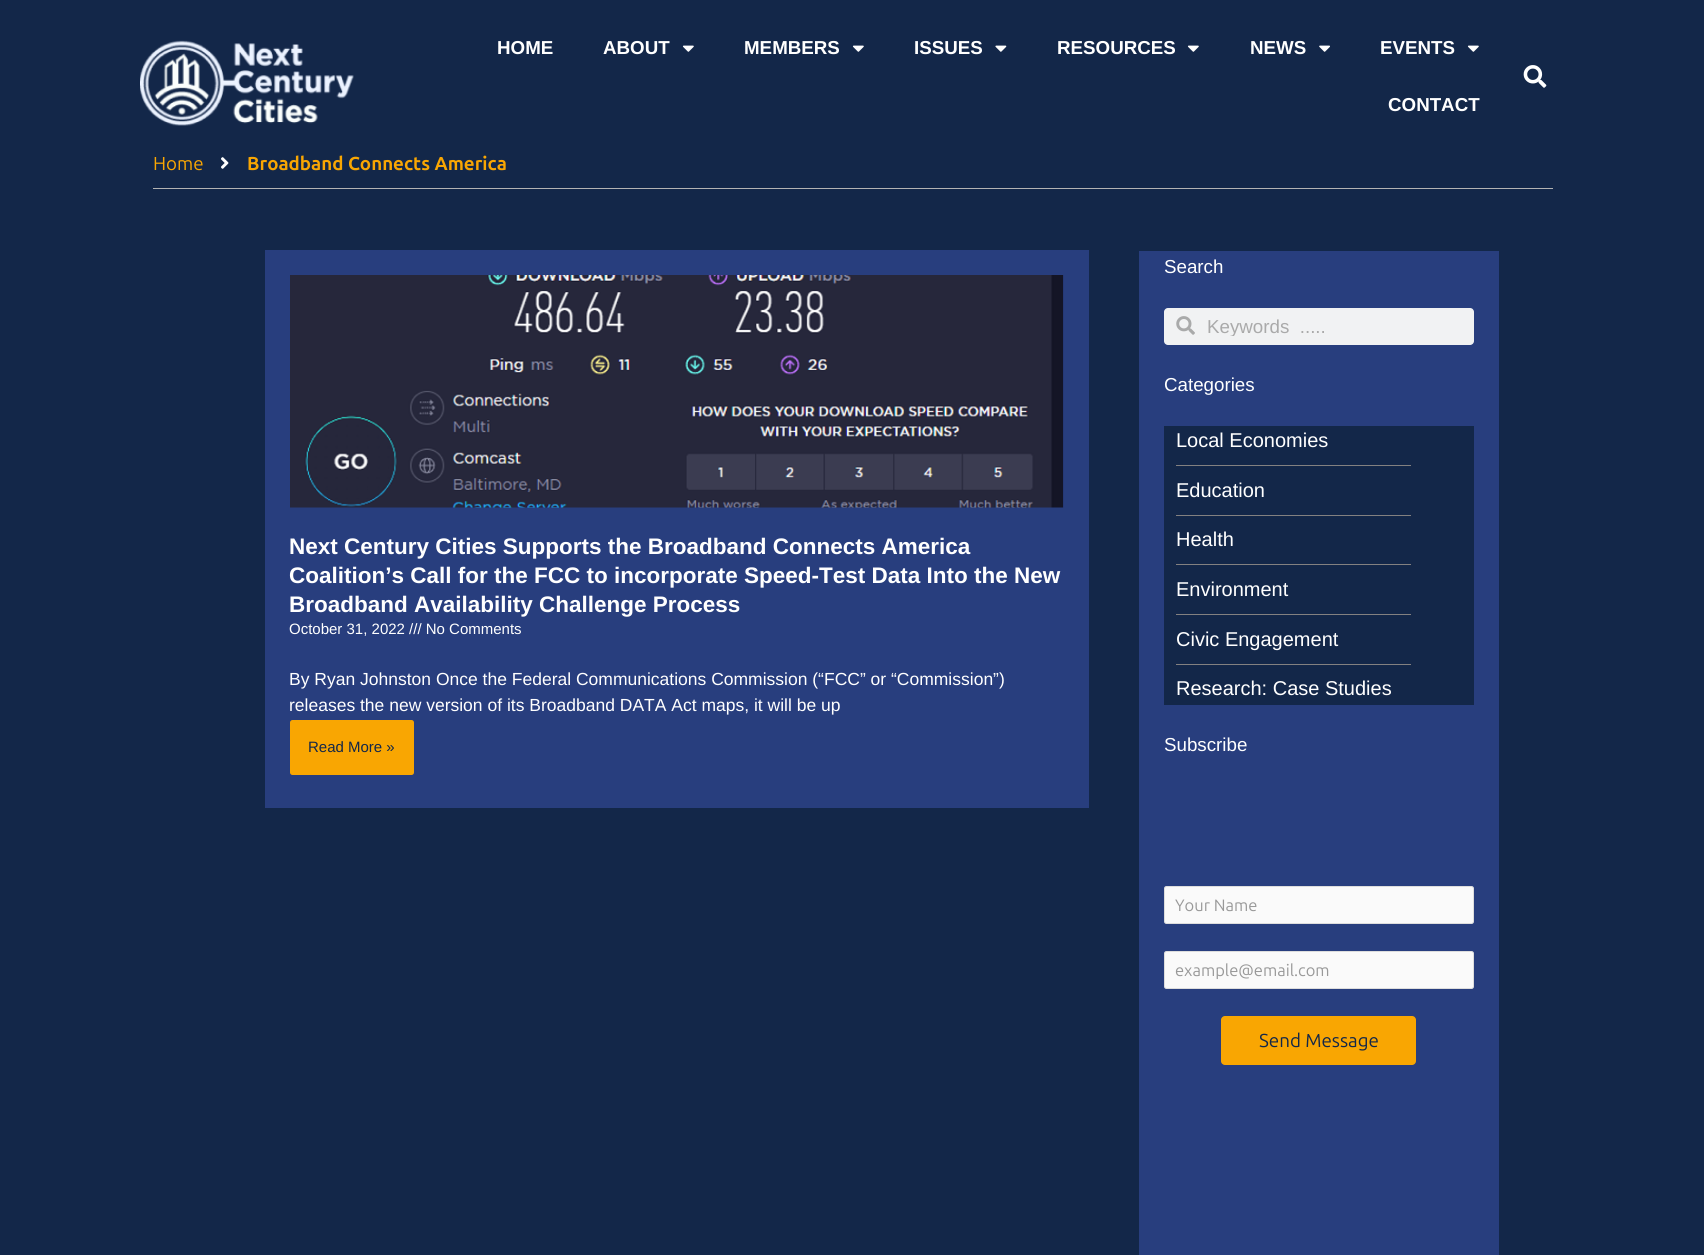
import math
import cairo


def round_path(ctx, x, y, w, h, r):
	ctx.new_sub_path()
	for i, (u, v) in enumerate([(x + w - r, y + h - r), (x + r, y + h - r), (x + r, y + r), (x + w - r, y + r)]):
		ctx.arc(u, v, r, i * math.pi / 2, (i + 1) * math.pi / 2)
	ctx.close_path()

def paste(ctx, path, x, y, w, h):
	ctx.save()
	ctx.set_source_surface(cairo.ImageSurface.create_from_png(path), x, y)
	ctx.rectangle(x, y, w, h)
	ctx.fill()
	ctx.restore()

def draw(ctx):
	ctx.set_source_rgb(0.078, 0.153, 0.286)
	ctx.paint()
	paste(ctx, 'media/1.png', 140, 40, 214, 86)
	ctx.select_font_face('Liberation Sans', cairo.FONT_SLANT_NORMAL, cairo.FONT_WEIGHT_BOLD)
	ctx.set_font_size(18.75)
	ctx.set_source_rgb(1, 1, 1)
	ctx.move_to(497, 54)
	ctx.show_text('HOME')
	ctx.move_to(603, 54)
	ctx.show_text('ABOUT')
	paste(ctx, 'media/2.png', 682, 45, 12, 7)
	ctx.move_to(744, 54)
	ctx.show_text('MEMBERS')
	paste(ctx, 'media/2.png', 852, 45, 12, 7)
	ctx.move_to(914, 54)
	ctx.show_text('ISSUES')
	paste(ctx, 'media/3.png', 995, 45, 12, 7)
	ctx.move_to(1057, 54)
	ctx.show_text('RESOURCES')
	paste(ctx, 'media/2.png', 1187, 45, 12, 7)
	ctx.move_to(1250, 54)
	ctx.show_text('NEWS')
	paste(ctx, 'media/4.png', 1319, 45, 11, 7)
	ctx.move_to(1380, 54)
	ctx.show_text('EVENTS')
	paste(ctx, 'media/2.png', 1467, 45, 12, 7)
	ctx.move_to(1388, 111)
	ctx.show_text('CONTACT')
	paste(ctx, 'media/5.png', 1523, 65, 24, 23)
	ctx.select_font_face('Ubuntu')
	ctx.set_source_rgb(0.976, 0.651, 0.008)
	ctx.move_to(153, 170)
	ctx.show_text('Home')
	paste(ctx, 'media/6.png', 221, 157, 8, 12)
	ctx.select_font_face('Ubuntu', cairo.FONT_SLANT_NORMAL, cairo.FONT_WEIGHT_BOLD)
	ctx.move_to(247, 170)
	ctx.show_text('Broadband Connects America')
	ctx.set_source_rgb(0.702, 0.702, 0.702)
	ctx.rectangle(153, 188, 1400, 1)
	ctx.fill()
	ctx.set_source_rgb(0.157, 0.243, 0.494)
	ctx.rectangle(265, 250, 824, 558)
	ctx.fill()
	paste(ctx, 'media/7.png', 290, 275, 774, 233)
	ctx.select_font_face('Liberation Sans', cairo.FONT_SLANT_NORMAL, cairo.FONT_WEIGHT_BOLD)
	ctx.set_font_size(22.5)
	ctx.set_source_rgb(1, 1, 1)
	for x, y, s in [
		(289, 554, 'Next Century Cities Supports the Broadband Connects America'),
		(289, 583, 'Coalition’s Call for the FCC to incorporate Speed-Test Data Into the New'),
		(289, 612, 'Broadband Availability Challenge Process'),
	]:
		ctx.move_to(x, y)
		ctx.show_text(s)
	ctx.select_font_face('Liberation Sans')
	ctx.set_font_size(15)
	ctx.move_to(289, 634)
	ctx.show_text('October 31, 2022 /// No Comments')
	ctx.set_font_size(17.5)
	ctx.move_to(289, 685)
	ctx.show_text('By Ryan Johnston Once the Federal Communications Commission (“FCC” or “Commission”)')
	ctx.move_to(289, 711)
	ctx.show_text('releases the new version of its Broadband DATA Act maps, it will be up')
	ctx.set_source_rgb(0.976, 0.651, 0.008)
	round_path(ctx, 290, 720, 124, 55, 2.5)
	ctx.fill()
	ctx.set_font_size(15)
	ctx.set_source_rgb(0.078, 0.153, 0.286)
	ctx.move_to(308, 752)
	ctx.show_text('Read More »')
	ctx.set_source_rgb(0.157, 0.243, 0.494)
	ctx.rectangle(1139, 251, 360, 1004)
	ctx.fill()
	ctx.set_font_size(18.75)
	ctx.set_source_rgb(1, 1, 1)
	ctx.move_to(1164, 273)
	ctx.show_text('Search')
	ctx.set_source_rgb(0.945, 0.949, 0.953)
	round_path(ctx, 1164, 308, 310, 37, 4)
	ctx.fill()
	paste(ctx, 'media/8.png', 1176, 316, 19, 19)
	ctx.save()
	ctx.rectangle(1208, 315, 248, 21)
	ctx.clip()
	ctx.set_source_rgb(0.667, 0.667, 0.667)
	ctx.move_to(1207, 333)
	ctx.show_text('Keywords  .....')
	ctx.restore()
	ctx.set_source_rgb(1, 1, 1)
	ctx.move_to(1164, 391)
	ctx.show_text('Categories')
	ctx.set_source_rgb(0.078, 0.153, 0.286)
	ctx.rectangle(1164, 426, 310, 279)
	ctx.fill()
	ctx.set_font_size(20)
	ctx.set_source_rgb(1, 1, 1)
	ctx.move_to(1176, 447)
	ctx.show_text('Local Economies')
	ctx.set_source_rgb(0.514, 0.506, 0.506)
	ctx.rectangle(1176, 465, 235, 1)
	ctx.fill()
	ctx.set_source_rgb(1, 1, 1)
	ctx.move_to(1176, 497)
	ctx.show_text('Education')
	ctx.set_source_rgb(0.514, 0.506, 0.506)
	ctx.rectangle(1176, 515, 235, 1)
	ctx.fill()
	ctx.set_source_rgb(1, 1, 1)
	ctx.move_to(1176, 546)
	ctx.show_text('Health')
	ctx.set_source_rgb(0.514, 0.506, 0.506)
	ctx.rectangle(1176, 564, 235, 1)
	ctx.fill()
	ctx.set_source_rgb(1, 1, 1)
	ctx.move_to(1176, 596)
	ctx.show_text('Environment')
	ctx.set_source_rgb(0.514, 0.506, 0.506)
	ctx.rectangle(1176, 614, 235, 1)
	ctx.fill()
	ctx.set_source_rgb(1, 1, 1)
	ctx.move_to(1176, 646)
	ctx.show_text('Civic Engagement')
	ctx.set_source_rgb(0.514, 0.506, 0.506)
	ctx.rectangle(1176, 664, 235, 1)
	ctx.fill()
	ctx.set_source_rgb(1, 1, 1)
	ctx.move_to(1176, 695)
	ctx.show_text('Research: Case Studies')
	ctx.set_font_size(18.75)
	ctx.move_to(1164, 751)
	ctx.show_text('Subscribe')
	ctx.set_source_rgb(0.98, 0.98, 0.98)
	round_path(ctx, 1164.5, 886.5, 309, 37, 2)
	ctx.fill_preserve()
	ctx.set_source_rgb(0.867, 0.867, 0.867)
	ctx.set_line_width(1)
	ctx.stroke()
	ctx.select_font_face('Ubuntu')
	ctx.set_font_size(16.5)
	ctx.set_source_rgb(0.6, 0.6, 0.6)
	ctx.move_to(1175, 911)
	ctx.show_text('Your Name')
	ctx.set_source_rgb(0.98, 0.98, 0.98)
	round_path(ctx, 1164.5, 951.5, 309, 37, 2)
	ctx.fill_preserve()
	ctx.set_source_rgb(0.867, 0.867, 0.867)
	ctx.stroke()
	ctx.set_source_rgb(0.6, 0.6, 0.6)
	ctx.move_to(1175, 976)
	ctx.show_text('example@email.com')
	ctx.set_source_rgb(0.976, 0.651, 0.008)
	round_path(ctx, 1221, 1016, 195, 49, 4)
	ctx.fill()
	ctx.set_font_size(18.75)
	ctx.set_source_rgb(0.078, 0.153, 0.286)
	ctx.move_to(1259, 1047)
	ctx.show_text('Send Message')


surface = cairo.ImageSurface(cairo.FORMAT_RGB24, 1704, 1255)
ctx = cairo.Context(surface)
options = cairo.FontOptions()
options.set_hint_metrics(cairo.HINT_METRICS_OFF)
options.set_hint_style(cairo.HINT_STYLE_NONE)
ctx.set_font_options(options)
ctx.set_miter_limit(4)
draw(ctx)
surface.write_to_png('image.png')
